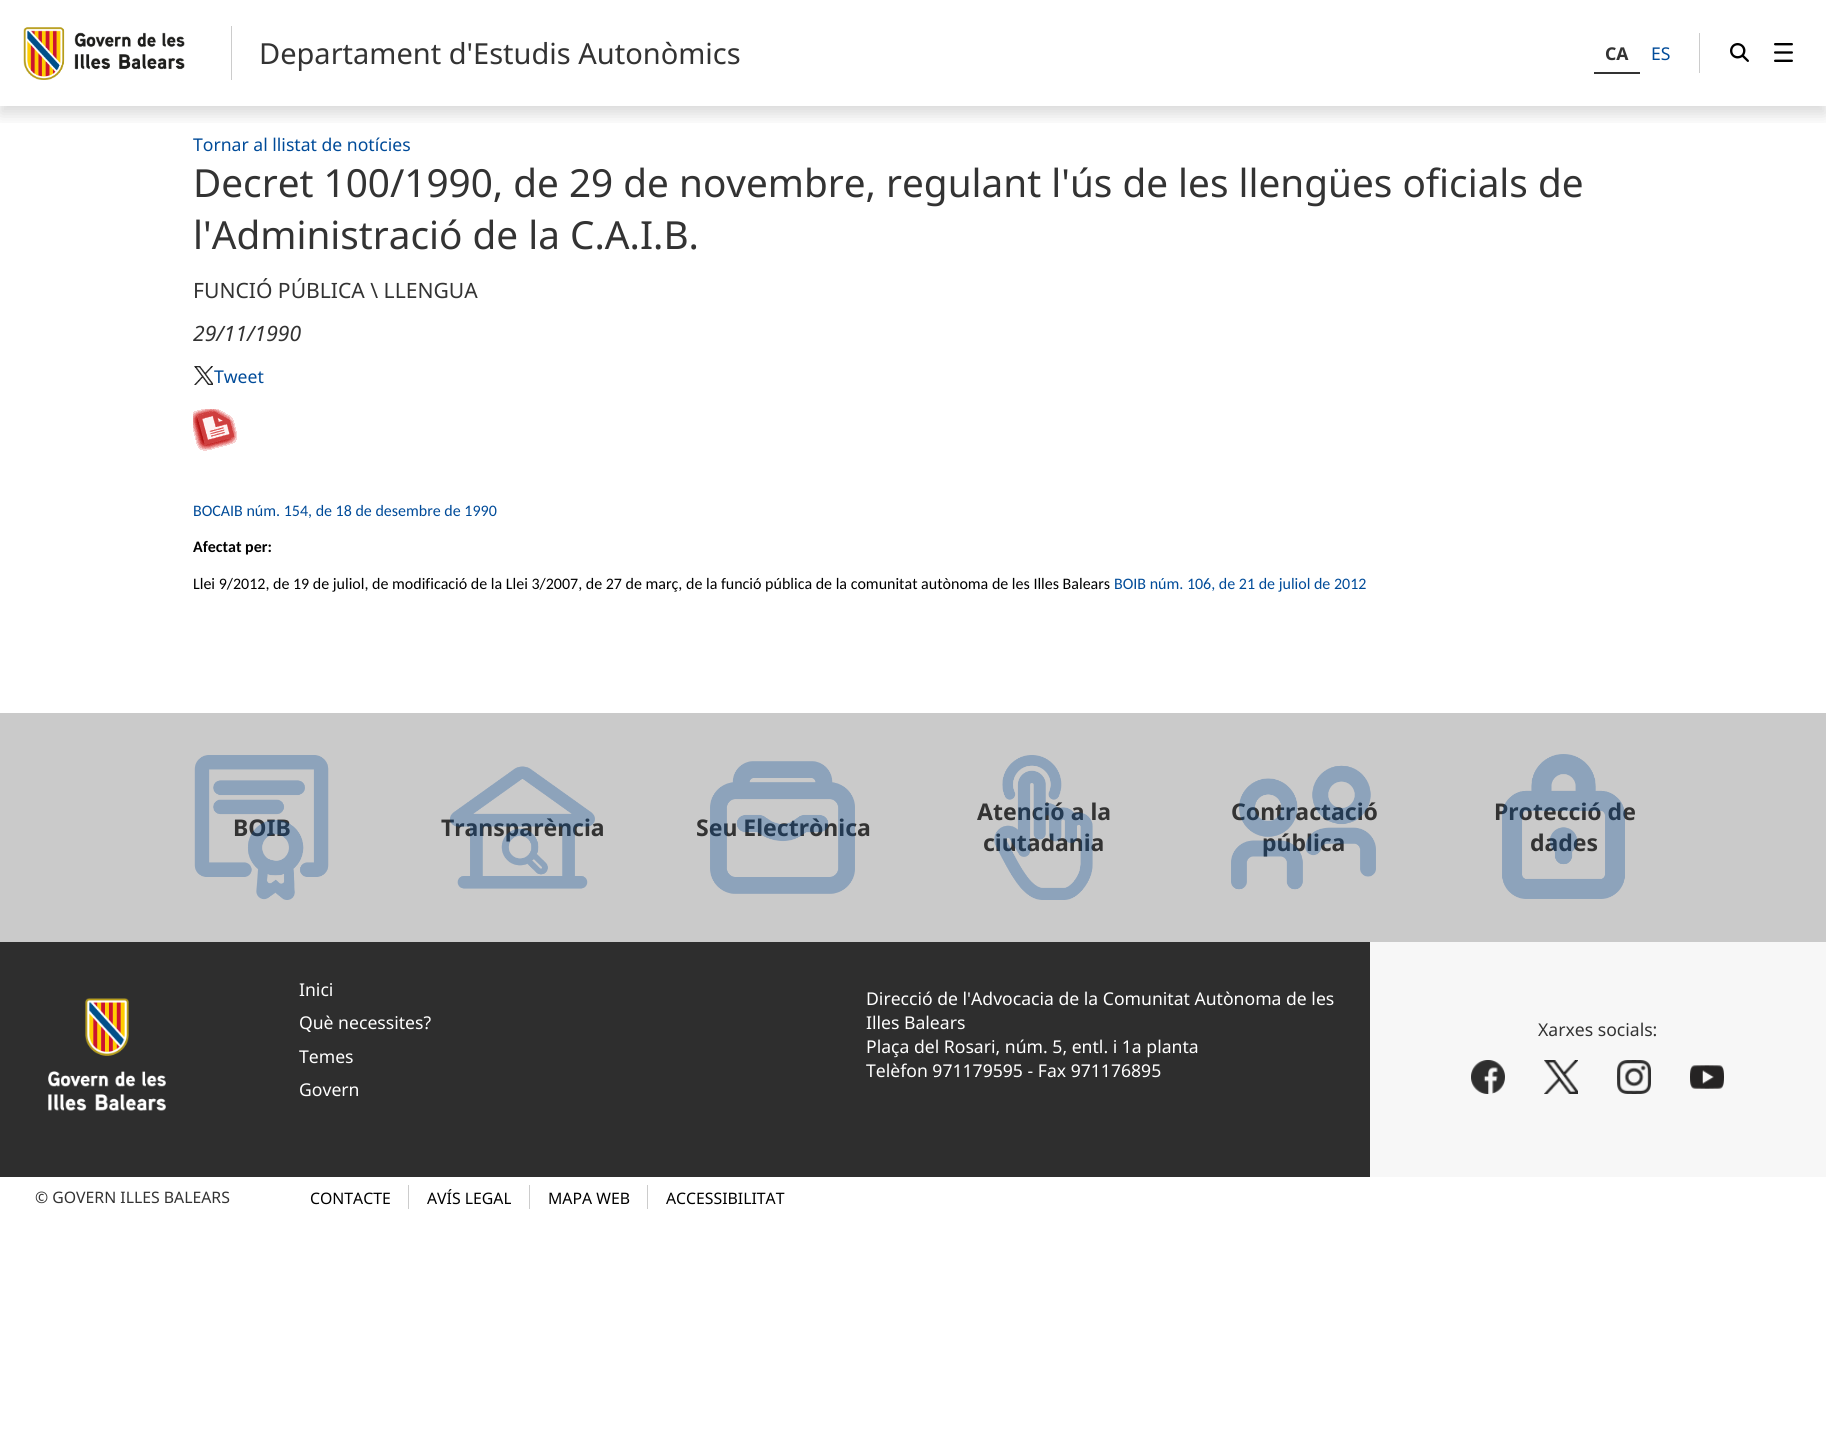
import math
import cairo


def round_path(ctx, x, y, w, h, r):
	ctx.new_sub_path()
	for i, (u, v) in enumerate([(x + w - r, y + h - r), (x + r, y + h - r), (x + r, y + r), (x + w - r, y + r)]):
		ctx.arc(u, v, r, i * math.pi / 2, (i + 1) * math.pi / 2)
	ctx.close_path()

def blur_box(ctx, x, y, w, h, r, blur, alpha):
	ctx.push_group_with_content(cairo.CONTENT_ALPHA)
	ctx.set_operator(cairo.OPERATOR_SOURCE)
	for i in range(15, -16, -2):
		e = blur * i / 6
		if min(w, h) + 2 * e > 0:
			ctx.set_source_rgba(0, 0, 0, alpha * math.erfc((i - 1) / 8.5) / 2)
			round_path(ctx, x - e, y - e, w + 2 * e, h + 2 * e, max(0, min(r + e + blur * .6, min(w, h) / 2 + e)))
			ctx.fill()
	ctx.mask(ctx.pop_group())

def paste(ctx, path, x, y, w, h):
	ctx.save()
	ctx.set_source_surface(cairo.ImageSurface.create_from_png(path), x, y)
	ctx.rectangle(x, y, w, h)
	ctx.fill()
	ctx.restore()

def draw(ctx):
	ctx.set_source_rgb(1, 1, 1)
	ctx.paint()
	ctx.save()
	ctx.rectangle(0, 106, 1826, 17)
	ctx.clip()
	ctx.set_source_rgb(0, 0, 0)
	blur_box(ctx, 0, 8, 1826, 106, 0, 8, 0.15)
	ctx.restore()
	ctx.set_source_rgb(0.8, 0.8, 0.8)
	ctx.rectangle(231, 26, 1, 54)
	ctx.fill()
	paste(ctx, 'media/1.png', 23, 27, 162, 53)
	ctx.select_font_face('Noto Sans')
	ctx.set_font_size(29)
	ctx.set_source_rgb(0.2, 0.2, 0.2)
	ctx.move_to(259, 64)
	ctx.show_text('Departament d\'Estudis Autonòmics')
	ctx.set_source_rgb(0.8, 0.8, 0.8)
	ctx.rectangle(1699, 33, 1, 40)
	ctx.fill()
	ctx.set_source_rgb(0.2, 0.2, 0.2)
	ctx.rectangle(1594, 72, 46, 2)
	ctx.fill()
	ctx.select_font_face('Noto Sans', cairo.FONT_SLANT_NORMAL, cairo.FONT_WEIGHT_BOLD)
	ctx.set_font_size(17.6)
	ctx.move_to(1605, 60)
	ctx.show_text('CA')
	ctx.select_font_face('Noto Sans')
	ctx.set_source_rgb(0, 0.294, 0.6)
	ctx.move_to(1651, 60)
	ctx.show_text('ES')
	paste(ctx, 'media/2.png', 1730, 43, 19, 19)
	paste(ctx, 'media/3.png', 1774, 43, 19, 19)
	ctx.move_to(193, 151)
	ctx.show_text('Tornar al llistat de notícies')
	ctx.set_font_size(38.7)
	ctx.set_source_rgb(0.2, 0.2, 0.2)
	ctx.move_to(193, 197)
	ctx.show_text('Decret 100/1990, de 29 de novembre, regulant l\'ús de les llengües oficials de')
	ctx.move_to(193, 249)
	ctx.show_text('l\'Administració de la C.A.I.B.')
	ctx.set_font_size(21.1)
	ctx.move_to(193, 298)
	ctx.show_text('FUNCIÓ PÚBLICA \\ LLENGUA')
	ctx.select_font_face('Noto Sans', cairo.FONT_SLANT_ITALIC)
	ctx.move_to(193, 341)
	ctx.show_text('29/11/1990')
	paste(ctx, 'media/4.png', 194, 366, 19, 19)
	ctx.select_font_face('Noto Sans')
	ctx.set_font_size(17.6)
	ctx.set_source_rgb(0, 0.294, 0.6)
	ctx.move_to(214, 383)
	ctx.show_text('Tweet')
	paste(ctx, 'media/5.png', 193, 409, 44, 42)
	ctx.select_font_face('Carlito')
	ctx.set_font_size(16)
	ctx.move_to(193, 516)
	ctx.show_text('BOCAIB núm. 154, de 18 de desembre de 1990')
	ctx.select_font_face('Carlito', cairo.FONT_SLANT_NORMAL, cairo.FONT_WEIGHT_BOLD)
	ctx.set_source_rgb(0, 0, 0)
	ctx.move_to(193, 552)
	ctx.show_text('Afectat per:')
	ctx.select_font_face('Carlito')
	ctx.move_to(193, 589)
	ctx.show_text('Llei 9/2012, de 19 de juliol, de modificació de la Llei 3/2007, de 27 de març, de la funció pública de la comunitat autònoma de les Illes Balears')
	ctx.set_source_rgb(0, 0.294, 0.6)
	ctx.move_to(1114, 589)
	ctx.show_text('BOIB núm. 106, de 21 de juliol de 2012')
	ctx.set_source_rgb(0.792, 0.792, 0.792)
	ctx.rectangle(0, 713, 1826, 229)
	ctx.fill()
	ctx.select_font_face('Noto Sans', cairo.FONT_SLANT_NORMAL, cairo.FONT_WEIGHT_BOLD)
	ctx.set_font_size(23)
	ctx.set_source_rgb(0.2, 0.2, 0.2)
	ctx.move_to(233, 836)
	ctx.show_text('BOIB')
	paste(ctx, 'media/6.png', 194, 755, 135, 145)
	ctx.move_to(441, 836)
	ctx.show_text('Transparència')
	paste(ctx, 'media/7.png', 450, 766, 145, 123)
	ctx.move_to(696, 836)
	ctx.show_text('Seu Electrònica')
	paste(ctx, 'media/8.png', 710, 761, 145, 133)
	ctx.move_to(977, 820)
	ctx.show_text('Atenció a la')
	ctx.move_to(983, 851)
	ctx.show_text('ciutadania')
	paste(ctx, 'media/9.png', 994, 755, 99, 145)
	ctx.move_to(1231, 820)
	ctx.show_text('Contractació')
	ctx.move_to(1262, 851)
	ctx.show_text('pública')
	paste(ctx, 'media/10.png', 1231, 765, 145, 125)
	ctx.move_to(1494, 820)
	ctx.show_text('Protecció de')
	ctx.move_to(1530, 851)
	ctx.show_text('dades')
	paste(ctx, 'media/11.png', 1502, 754, 123, 145)
	ctx.set_source_rgb(0.18, 0.18, 0.18)
	ctx.rectangle(0, 942, 1370, 235)
	ctx.fill()
	paste(ctx, 'media/12.png', 48, 998, 118, 113)
	ctx.select_font_face('Noto Sans')
	ctx.set_font_size(17.6)
	ctx.set_source_rgb(1, 1, 1)
	for x, y, s in [
		(299, 996, 'Inici'),
		(299, 1029, 'Què necessites?'),
		(299, 1063, 'Temes'),
		(299, 1096, 'Govern'),
		(866, 1005, 'Direcció de l\'Advocacia de la Comunitat Autònoma de les'),
		(866, 1029, 'Illes Balears'),
		(866, 1053, 'Plaça del Rosari, núm. 5, entl. i 1a planta'),
		(866, 1077, 'Telèfon 971179595 - Fax 971176895'),
	]:
		ctx.move_to(x, y)
		ctx.show_text(s)
	ctx.set_source_rgb(0.965, 0.965, 0.965)
	ctx.rectangle(1370, 942, 456, 235)
	ctx.fill()
	ctx.set_source_rgb(0.2, 0.2, 0.2)
	ctx.move_to(1538, 1036)
	ctx.show_text('Xarxes socials:')
	paste(ctx, 'media/13.png', 1471, 1060, 34, 34)
	paste(ctx, 'media/14.png', 1544, 1060, 34, 34)
	paste(ctx, 'media/15.png', 1617, 1060, 34, 34)
	paste(ctx, 'media/16.png', 1690, 1065, 34, 24)
	ctx.set_font_size(15.8)
	ctx.move_to(35, 1203)
	ctx.show_text('© GOVERN ILLES BALEARS')
	ctx.set_source_rgb(0.8, 0.8, 0.8)
	ctx.rectangle(408, 1185, 1, 24)
	ctx.fill()
	ctx.set_source_rgb(0, 0, 0)
	ctx.move_to(310, 1204)
	ctx.show_text('CONTACTE')
	ctx.set_source_rgb(0.8, 0.8, 0.8)
	ctx.rectangle(529, 1185, 1, 24)
	ctx.fill()
	ctx.set_source_rgb(0, 0, 0)
	ctx.move_to(427, 1204)
	ctx.show_text('AVÍS LEGAL')
	ctx.set_source_rgb(0.8, 0.8, 0.8)
	ctx.rectangle(647, 1185, 1, 24)
	ctx.fill()
	ctx.set_source_rgb(0, 0, 0)
	ctx.move_to(548, 1204)
	ctx.show_text('MAPA WEB')
	ctx.move_to(666, 1204)
	ctx.show_text('ACCESSIBILITAT')


surface = cairo.ImageSurface(cairo.FORMAT_RGB24, 1826, 1431)
ctx = cairo.Context(surface)
options = cairo.FontOptions()
options.set_hint_metrics(cairo.HINT_METRICS_OFF)
options.set_hint_style(cairo.HINT_STYLE_NONE)
ctx.set_font_options(options)
ctx.set_miter_limit(4)
draw(ctx)
surface.write_to_png('image.png')
